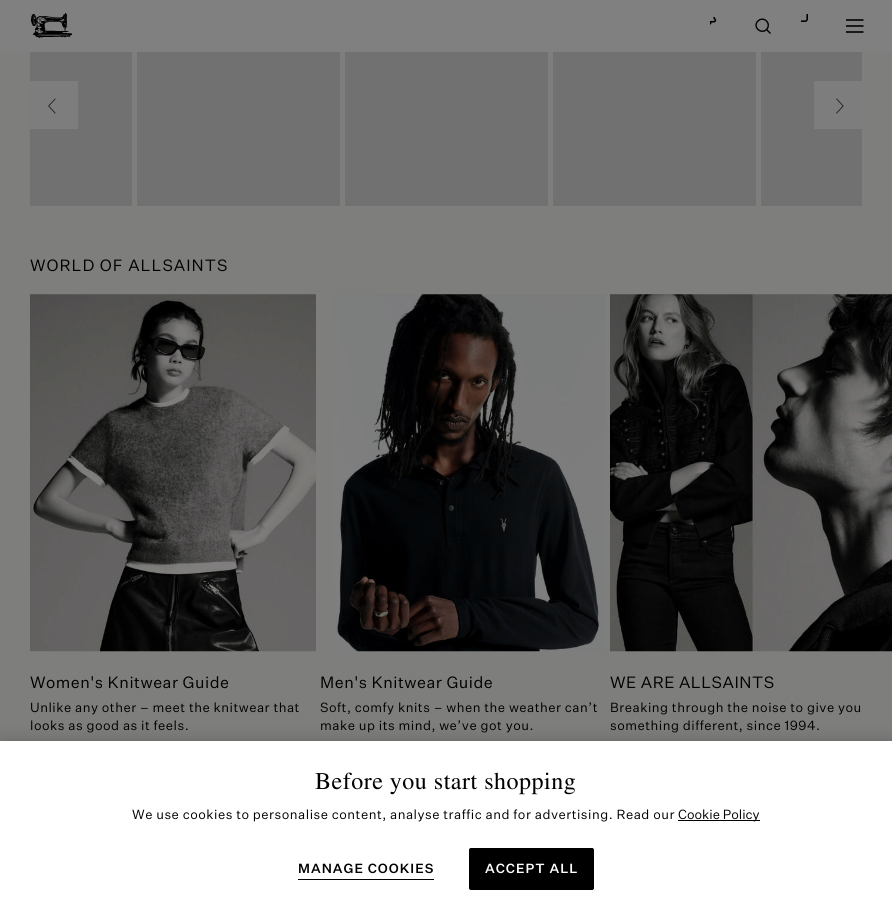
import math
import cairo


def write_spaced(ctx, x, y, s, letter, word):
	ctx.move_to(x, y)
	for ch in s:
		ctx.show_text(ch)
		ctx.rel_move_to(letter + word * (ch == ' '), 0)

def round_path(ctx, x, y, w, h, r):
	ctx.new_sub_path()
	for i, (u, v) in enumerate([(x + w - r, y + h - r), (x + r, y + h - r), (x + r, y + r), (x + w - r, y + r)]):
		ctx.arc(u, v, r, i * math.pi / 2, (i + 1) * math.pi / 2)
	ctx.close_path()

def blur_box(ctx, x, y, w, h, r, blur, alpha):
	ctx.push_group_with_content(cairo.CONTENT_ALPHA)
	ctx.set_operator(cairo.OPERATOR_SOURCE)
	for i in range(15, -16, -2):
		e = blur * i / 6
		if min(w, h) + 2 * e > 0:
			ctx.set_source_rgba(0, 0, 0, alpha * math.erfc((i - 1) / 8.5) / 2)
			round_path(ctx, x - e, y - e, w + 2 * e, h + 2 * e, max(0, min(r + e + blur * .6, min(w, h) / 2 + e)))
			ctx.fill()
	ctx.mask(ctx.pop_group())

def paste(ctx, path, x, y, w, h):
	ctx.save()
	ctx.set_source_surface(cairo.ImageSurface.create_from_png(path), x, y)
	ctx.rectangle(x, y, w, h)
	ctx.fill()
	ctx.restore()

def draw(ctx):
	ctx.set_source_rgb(0.494, 0.494, 0.49)
	ctx.paint()
	ctx.set_source_rgb(0.502, 0.502, 0.502)
	ctx.rectangle(0, 0, 892, 52)
	ctx.fill()
	paste(ctx, 'media/1.png', 30, 13, 42, 25)
	paste(ctx, 'media/2.png', 710, 17, 7, 8)
	ctx.new_path()
	ctx.move_to(766.5, 29.5)
	ctx.curve_to(772, 23.5, 763.5, 15.5, 758, 21)
	ctx.curve_to(752, 26.5, 761, 35, 766.5, 29.5)
	ctx.close_path()
	ctx.move_to(766, 29)
	ctx.line_to(770.5, 33.5)
	ctx.set_source_rgb(0, 0, 0)
	ctx.set_line_width(1.4)
	ctx.stroke()
	paste(ctx, 'media/3.png', 801, 14, 7, 8)
	paste(ctx, 'media/4.png', 846, 19, 18, 14)
	ctx.set_source_rgb(0.443, 0.443, 0.443)
	ctx.rectangle(30, 52, 102, 154)
	ctx.rectangle(137, 52, 203, 154)
	ctx.rectangle(345, 52, 203, 154)
	ctx.rectangle(553, 52, 203, 154)
	ctx.rectangle(761, 52, 101, 154)
	ctx.fill()
	ctx.set_source_rgb(0.49, 0.49, 0.49)
	ctx.rectangle(30, 81, 48, 48)
	ctx.fill()
	paste(ctx, 'media/5.png', 48, 98, 8, 16)
	ctx.rectangle(814, 81, 48, 48)
	ctx.fill()
	paste(ctx, 'media/6.png', 836, 98, 8, 16)
	ctx.select_font_face('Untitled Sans')
	ctx.set_font_size(16)
	ctx.set_source_rgb(0, 0, 0)
	write_spaced(ctx, 30, 271, 'WORLD OF ALLSAINTS', 1, 0)
	paste(ctx, 'media/7.png', 30, 294, 286, 358)
	write_spaced(ctx, 30, 688, 'Women\'s Knitwear Guide', 0.5, 0)
	ctx.set_font_size(13)
	write_spaced(ctx, 30, 712, 'Unlike any other – meet the knitwear that', 0.5, 0)
	write_spaced(ctx, 30, 730, 'looks as good as it feels.', 0.5, 0)
	paste(ctx, 'media/8.png', 334, 294, 272, 358)
	ctx.set_font_size(16)
	write_spaced(ctx, 320, 688, 'Men\'s Knitwear Guide', 0.5, 0)
	ctx.set_font_size(13)
	write_spaced(ctx, 320, 712, 'Soft, comfy knits – when the weather can’t', 0.5, 0)
	write_spaced(ctx, 320, 730, 'make up its mind, we’ve got you.', 0.5, 0)
	paste(ctx, 'media/9.png', 610, 294, 282, 358)
	ctx.set_font_size(16)
	write_spaced(ctx, 610, 688, 'WE ARE ALLSAINTS', 0.5, 0)
	ctx.set_font_size(13)
	write_spaced(ctx, 610, 712, 'Breaking through the noise to give you', 0.5, 0)
	write_spaced(ctx, 610, 730, 'something different, since 1994.', 0.5, 0)
	ctx.set_source_rgb(0, 0, 0)
	blur_box(ctx, 0, 741, 892, 173, 0, 9, 0.2)
	ctx.set_source_rgb(1, 1, 1)
	ctx.rectangle(0, 741, 892, 173)
	ctx.fill()
	ctx.select_font_face('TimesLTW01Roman')
	ctx.set_font_size(24)
	ctx.set_source_rgb(0, 0, 0)
	write_spaced(ctx, 315, 789, 'Before you start shopping', 0.5, 0)
	ctx.select_font_face('Untitled Sans')
	ctx.set_font_size(13)
	write_spaced(ctx, 132, 819, 'We use cookies to personalise content, analyse traffic and for advertising. Read our', 0.5, 0)
	ctx.rectangle(678, 820, 82, 1)
	ctx.fill()
	ctx.move_to(678, 819)
	ctx.show_text('Cookie Policy')
	ctx.select_font_face('Untitled Sans Medium')
	write_spaced(ctx, 298, 873, 'MANAGE COOKIES', 1, 0)
	ctx.rectangle(298, 879, 136, 1)
	ctx.fill()
	round_path(ctx, 469.5, 848.5, 124, 41, 1.5)
	ctx.fill_preserve()
	ctx.set_line_width(1)
	ctx.stroke()
	ctx.set_source_rgb(1, 1, 1)
	write_spaced(ctx, 485, 873, 'ACCEPT ALL', 1, 0)


surface = cairo.ImageSurface(cairo.FORMAT_RGB24, 892, 914)
ctx = cairo.Context(surface)
options = cairo.FontOptions()
options.set_hint_metrics(cairo.HINT_METRICS_OFF)
options.set_hint_style(cairo.HINT_STYLE_NONE)
ctx.set_font_options(options)
ctx.set_miter_limit(4)
draw(ctx)
surface.write_to_png('image.png')
